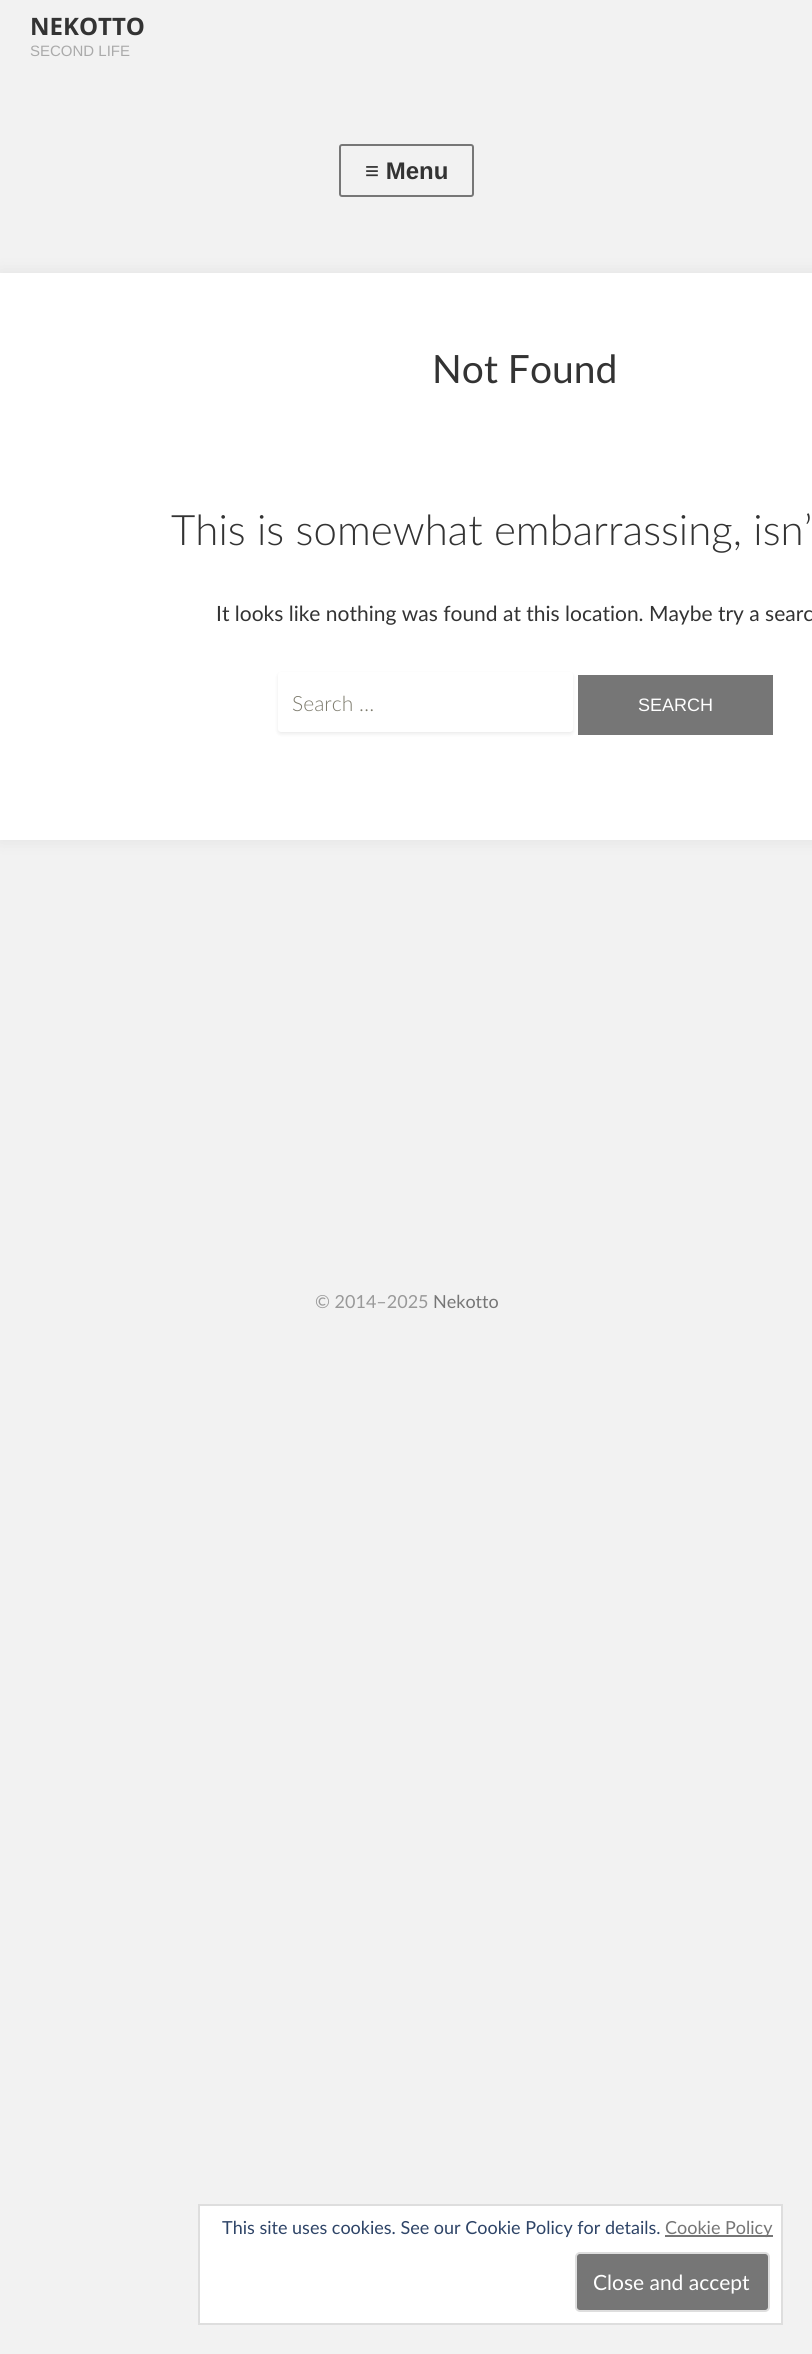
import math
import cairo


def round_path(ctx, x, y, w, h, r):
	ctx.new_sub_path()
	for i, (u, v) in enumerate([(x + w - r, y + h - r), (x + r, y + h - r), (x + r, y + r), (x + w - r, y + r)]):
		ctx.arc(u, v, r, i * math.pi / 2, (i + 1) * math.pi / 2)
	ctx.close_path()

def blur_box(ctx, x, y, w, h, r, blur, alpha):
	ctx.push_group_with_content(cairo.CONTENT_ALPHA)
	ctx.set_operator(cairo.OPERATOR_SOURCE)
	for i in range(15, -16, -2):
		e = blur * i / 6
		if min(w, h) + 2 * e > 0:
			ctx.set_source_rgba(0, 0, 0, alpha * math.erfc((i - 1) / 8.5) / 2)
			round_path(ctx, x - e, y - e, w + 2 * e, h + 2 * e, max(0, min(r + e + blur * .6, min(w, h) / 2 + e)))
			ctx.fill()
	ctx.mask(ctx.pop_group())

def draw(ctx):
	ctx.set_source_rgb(0.949, 0.949, 0.949)
	ctx.paint()
	ctx.select_font_face('Open Sans', cairo.FONT_SLANT_NORMAL, cairo.FONT_WEIGHT_BOLD)
	ctx.set_font_size(24)
	ctx.set_source_rgb(0.2, 0.2, 0.2)
	ctx.move_to(30, 35)
	ctx.show_text('NEKOTTO')
	ctx.select_font_face('Liberation Sans')
	ctx.set_font_size(15)
	ctx.set_source_rgb(0.667, 0.667, 0.667)
	ctx.move_to(30, 56)
	ctx.show_text('SECOND LIFE')
	round_path(ctx, 340, 145, 133, 51, 2)
	ctx.set_source_rgb(0.467, 0.467, 0.467)
	ctx.stroke()
	ctx.select_font_face('Liberation Sans', cairo.FONT_SLANT_NORMAL, cairo.FONT_WEIGHT_BOLD)
	ctx.set_font_size(24)
	ctx.set_source_rgb(0.2, 0.2, 0.2)
	ctx.move_to(365, 179)
	ctx.show_text('≡ Menu')
	ctx.set_source_rgb(0, 0, 0)
	blur_box(ctx, 0, 273, 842, 567, 0, 10, 0.07)
	ctx.set_source_rgb(1, 1, 1)
	ctx.rectangle(0, 273, 812, 567)
	ctx.fill()
	ctx.select_font_face('Lato')
	ctx.set_font_size(39)
	ctx.set_source_rgb(0.2, 0.2, 0.2)
	ctx.move_to(432, 383)
	ctx.show_text('Not Found')
	ctx.select_font_face('Lato Light')
	ctx.set_font_size(42)
	ctx.move_to(171, 545)
	ctx.show_text('This is somewhat embarrassing, isn’')
	ctx.select_font_face('Lato')
	ctx.set_font_size(21)
	ctx.move_to(216, 621)
	ctx.show_text('It looks like nothing was found at this location. Maybe try a searc')
	ctx.set_source_rgb(0, 0, 0)
	blur_box(ctx, 278, 674, 295, 60, 3, 2, 0.08)
	ctx.set_source_rgb(1, 1, 1)
	round_path(ctx, 278, 672, 295, 60, 3)
	ctx.fill()
	ctx.select_font_face('Lato Light')
	ctx.set_source_rgb(0.49, 0.482, 0.427)
	ctx.move_to(292, 711)
	ctx.show_text('Search …')
	ctx.set_source_rgb(0.463, 0.463, 0.463)
	ctx.rectangle(578, 675, 195, 60)
	ctx.fill()
	ctx.select_font_face('Liberation Sans')
	ctx.set_font_size(18)
	ctx.set_source_rgb(1, 1, 1)
	ctx.move_to(638, 711)
	ctx.show_text('SEARCH')
	ctx.select_font_face('Lato')
	ctx.set_source_rgb(0.6, 0.6, 0.6)
	ctx.move_to(315, 1308)
	ctx.show_text('© 2014–2025')
	ctx.set_source_rgb(0.463, 0.463, 0.463)
	ctx.move_to(433, 1308)
	ctx.show_text('Nekotto')
	ctx.set_source_rgb(1, 1, 1)
	ctx.rectangle(199, 2205, 583, 119)
	ctx.fill_preserve()
	ctx.set_source_rgb(0.871, 0.871, 0.871)
	ctx.stroke()
	ctx.set_source_rgb(0.18, 0.267, 0.404)
	ctx.move_to(222, 2234)
	ctx.show_text('This site uses cookies. See our Cookie Policy for details.')
	ctx.set_source_rgb(0.463, 0.463, 0.463)
	ctx.rectangle(665, 2235, 108, 2)
	ctx.fill()
	ctx.move_to(665, 2234)
	ctx.show_text('Cookie Policy')
	round_path(ctx, 576, 2253, 193, 58, 4)
	ctx.fill_preserve()
	ctx.set_source_rgb(0.871, 0.871, 0.871)
	ctx.stroke()
	ctx.set_font_size(21)
	ctx.set_source_rgb(1, 1, 1)
	ctx.move_to(593, 2290)
	ctx.show_text('Close and accept')


surface = cairo.ImageSurface(cairo.FORMAT_RGB24, 812, 2354)
ctx = cairo.Context(surface)
options = cairo.FontOptions()
options.set_hint_metrics(cairo.HINT_METRICS_OFF)
options.set_hint_style(cairo.HINT_STYLE_NONE)
ctx.set_font_options(options)
ctx.set_miter_limit(4)
draw(ctx)
surface.write_to_png('image.png')
